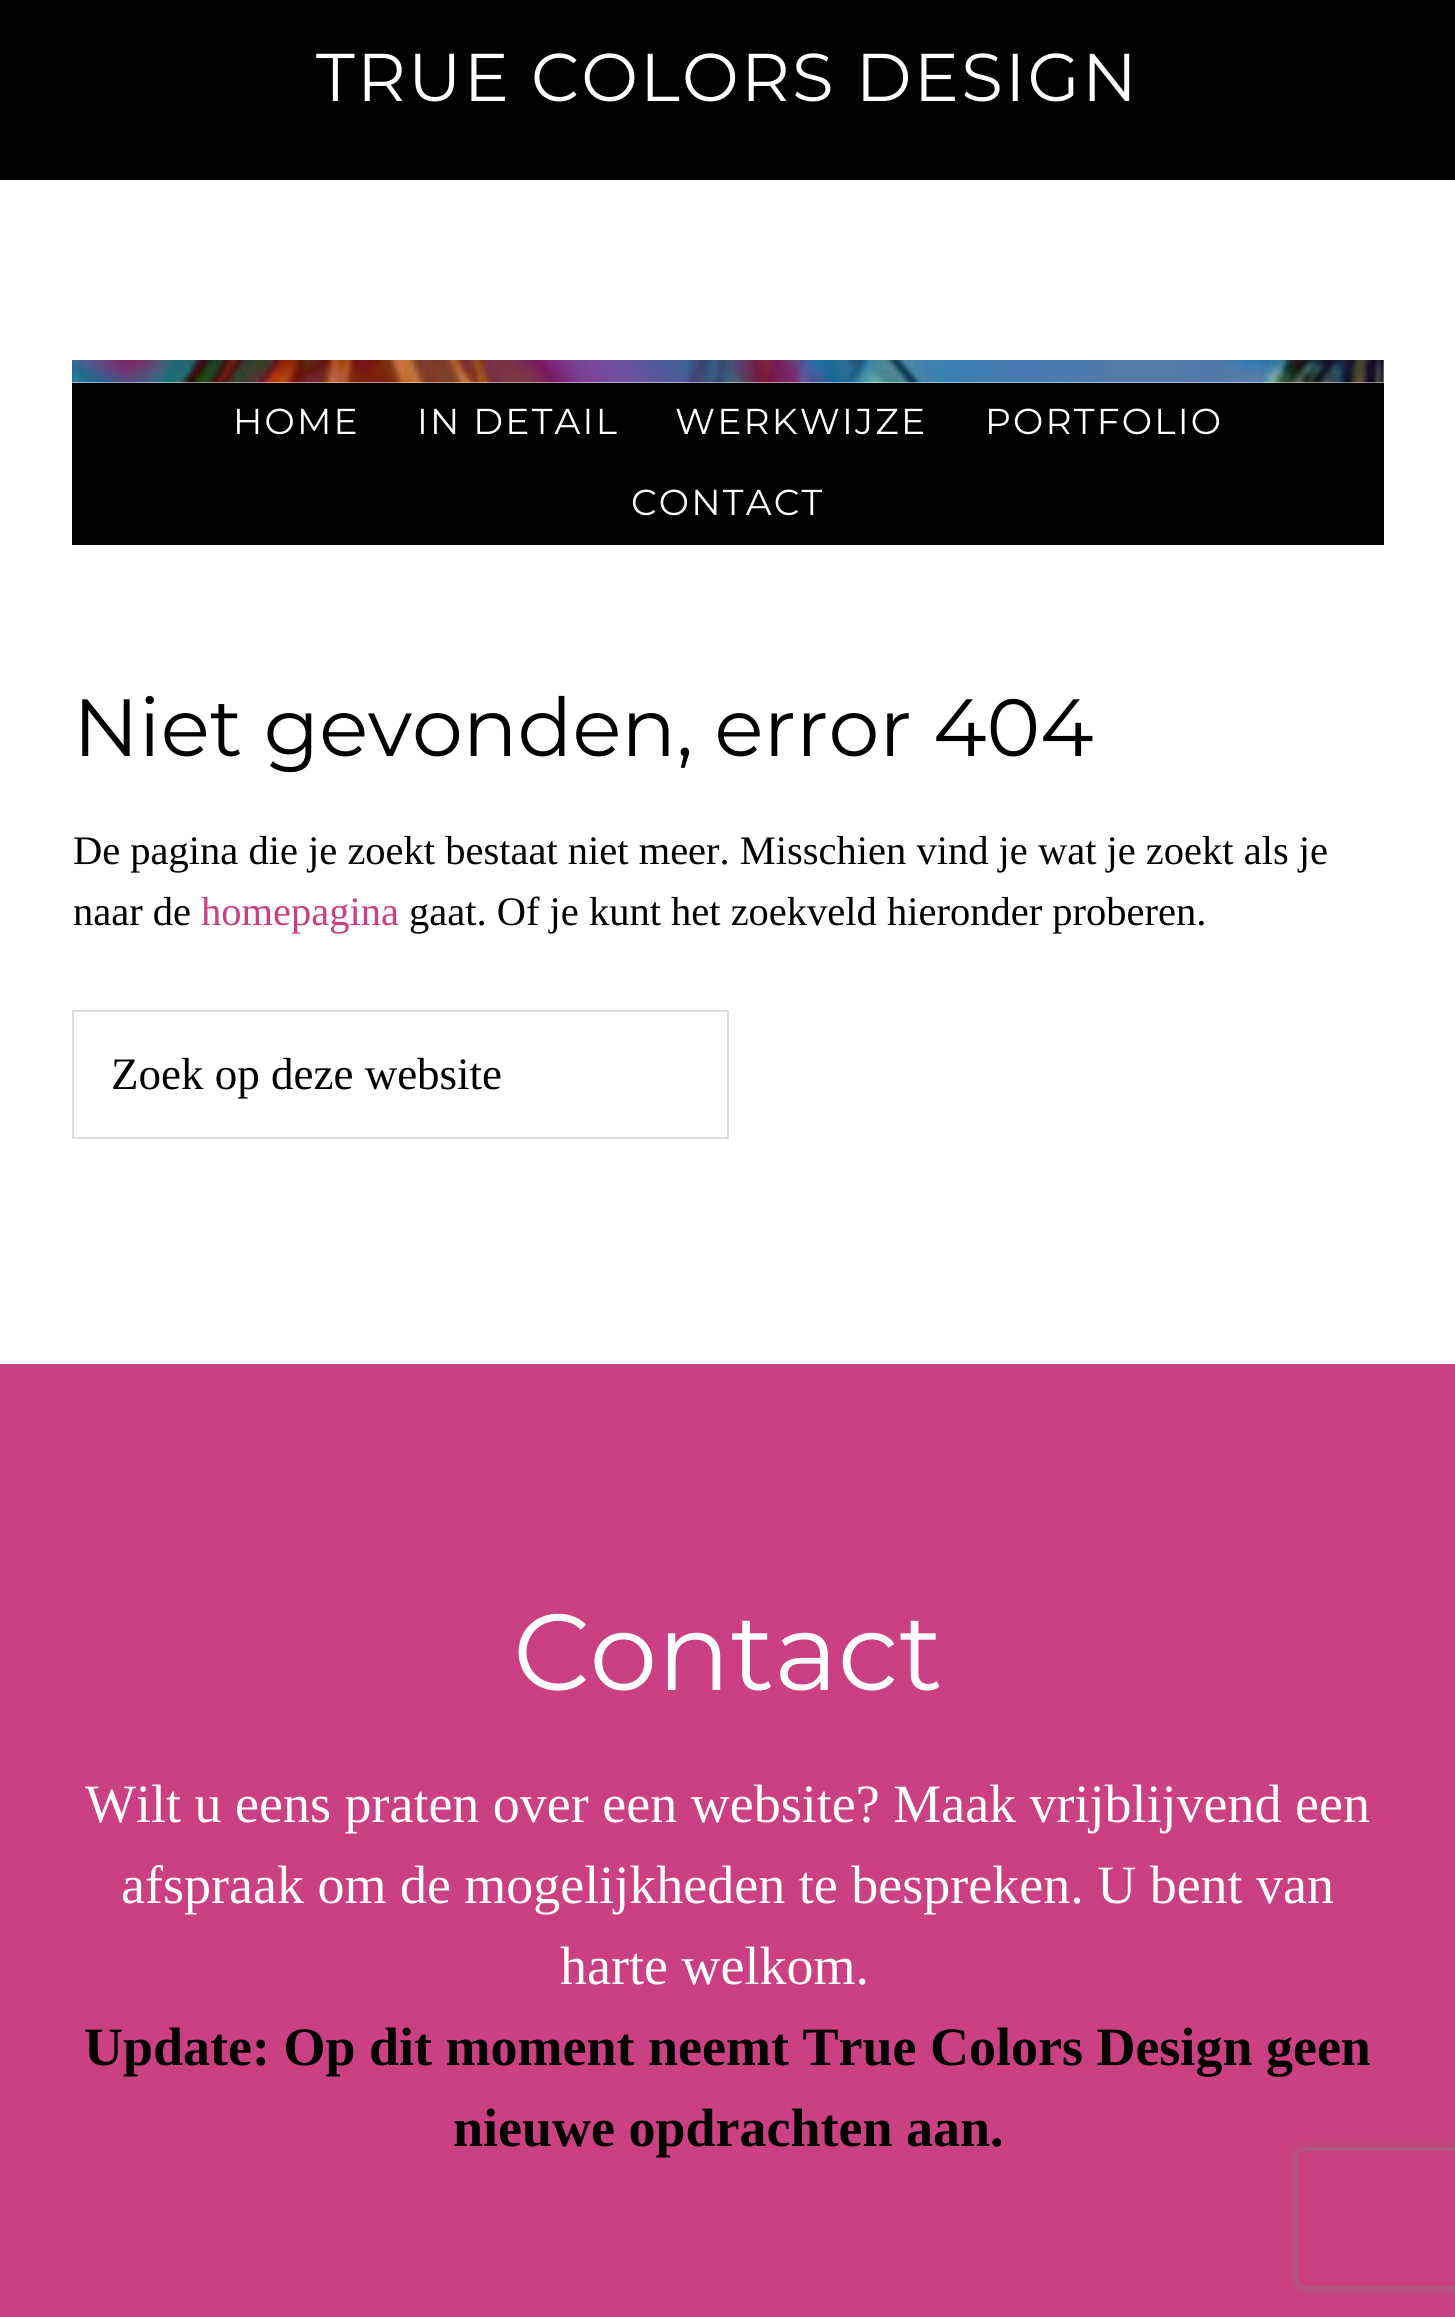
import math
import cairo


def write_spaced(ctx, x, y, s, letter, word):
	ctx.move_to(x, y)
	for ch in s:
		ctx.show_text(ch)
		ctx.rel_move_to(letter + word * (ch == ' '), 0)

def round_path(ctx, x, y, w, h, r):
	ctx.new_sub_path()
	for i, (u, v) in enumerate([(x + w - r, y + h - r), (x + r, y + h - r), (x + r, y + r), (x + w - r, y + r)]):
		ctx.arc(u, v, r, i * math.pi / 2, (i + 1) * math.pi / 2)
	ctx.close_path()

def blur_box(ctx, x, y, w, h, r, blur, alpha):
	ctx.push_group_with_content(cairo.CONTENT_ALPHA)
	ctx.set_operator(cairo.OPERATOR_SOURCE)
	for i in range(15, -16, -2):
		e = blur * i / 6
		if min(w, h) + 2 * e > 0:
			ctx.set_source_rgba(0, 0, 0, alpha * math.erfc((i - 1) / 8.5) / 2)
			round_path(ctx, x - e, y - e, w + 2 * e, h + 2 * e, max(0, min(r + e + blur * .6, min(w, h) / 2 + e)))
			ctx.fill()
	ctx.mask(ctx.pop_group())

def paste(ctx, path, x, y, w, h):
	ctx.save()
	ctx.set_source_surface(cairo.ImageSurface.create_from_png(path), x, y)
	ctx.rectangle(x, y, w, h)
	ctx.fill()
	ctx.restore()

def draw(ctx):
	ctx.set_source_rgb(1, 1, 1)
	ctx.paint()
	ctx.set_source_rgb(0, 0, 0)
	ctx.rectangle(0, 0, 1455, 180)
	ctx.fill()
	ctx.select_font_face('Montserrat Thin')
	ctx.set_font_size(67.5)
	ctx.set_source_rgb(1, 1, 1)
	write_spaced(ctx, 316, 101, 'TRUE COLORS DESIGN', 2.25, 0)
	paste(ctx, 'media/1.png', 72, 360, 1312, 23)
	ctx.set_source_rgb(0, 0, 0)
	ctx.rectangle(72, 383, 1312, 162)
	ctx.fill()
	ctx.set_font_size(36)
	ctx.set_source_rgb(1, 1, 1)
	for x, y, s in [
		(233, 434, 'HOME'),
		(417, 434, 'IN DETAIL'),
		(675, 434, 'WERKWIJZE'),
		(985, 434, 'PORTFOLIO'),
		(631, 515, 'CONTACT'),
	]:
		write_spaced(ctx, x, y, s, 2.25, 0)
	ctx.set_font_size(81)
	ctx.set_source_rgb(0, 0, 0)
	ctx.move_to(73, 756)
	ctx.show_text('Niet gevonden, error 404')
	ctx.select_font_face('Liberation Serif')
	ctx.set_font_size(40.5)
	ctx.move_to(73, 864)
	ctx.show_text('De pagina die je zoekt bestaat niet meer. Misschien vind je wat je zoekt als je')
	ctx.move_to(73, 925)
	ctx.show_text('naar de')
	ctx.set_source_rgb(0.796, 0.251, 0.51)
	ctx.move_to(201, 925)
	ctx.show_text('homepagina')
	ctx.set_source_rgb(0, 0, 0)
	ctx.move_to(409, 925)
	ctx.show_text('gaat. Of je kunt het zoekveld hieronder proberen.')
	ctx.rectangle(73, 1011, 655, 127)
	ctx.set_source_rgb(0.867, 0.867, 0.867)
	ctx.stroke()
	ctx.set_font_size(45)
	ctx.set_source_rgb(0, 0, 0)
	ctx.move_to(111, 1089)
	ctx.show_text('Zoek op deze website')
	ctx.set_source_rgb(0.796, 0.251, 0.51)
	ctx.rectangle(0, 1364, 1455, 953)
	ctx.fill()
	ctx.select_font_face('Montserrat Thin')
	ctx.set_font_size(108)
	ctx.set_source_rgb(1, 1, 1)
	ctx.move_to(513, 1690)
	ctx.show_text('Contact')
	ctx.select_font_face('Liberation Serif')
	ctx.set_font_size(54)
	for x, y, s in [
		(85, 1822, 'Wilt u eens praten over een website? Maak vrijblijvend een'),
		(121, 1903, 'afspraak om de mogelijkheden te bespreken. U bent van'),
		(560, 1984, 'harte welkom.'),
	]:
		ctx.move_to(x, y)
		ctx.show_text(s)
	ctx.select_font_face('Liberation Serif', cairo.FONT_SLANT_NORMAL, cairo.FONT_WEIGHT_BOLD)
	ctx.set_source_rgb(0, 0, 0)
	ctx.move_to(84, 2065)
	ctx.show_text('Update: Op dit moment neemt True Colors Design geen')
	ctx.move_to(453, 2146)
	ctx.show_text('nieuwe opdrachten aan.')
	ctx.save()
	ctx.set_fill_rule(cairo.FILL_RULE_EVEN_ODD)
	ctx.new_path()
	ctx.move_to(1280, 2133)
	ctx.line_to(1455, 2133)
	ctx.line_to(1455, 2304)
	ctx.line_to(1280, 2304)
	ctx.close_path()
	ctx.move_to(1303, 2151)
	ctx.line_to(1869, 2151)
	ctx.curve_to(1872, 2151, 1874, 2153, 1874, 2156)
	ctx.line_to(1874, 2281)
	ctx.curve_to(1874, 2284, 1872, 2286, 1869, 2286)
	ctx.line_to(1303, 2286)
	ctx.curve_to(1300, 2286, 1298, 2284, 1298, 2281)
	ctx.line_to(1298, 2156)
	ctx.curve_to(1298, 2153, 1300, 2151, 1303, 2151)
	ctx.close_path()
	ctx.clip()
	ctx.set_source_rgb(0.502, 0.502, 0.502)
	blur_box(ctx, 1298, 2151, 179, 135, 5, 5.5, 1)
	ctx.restore()


surface = cairo.ImageSurface(cairo.FORMAT_RGB24, 1455, 2317)
ctx = cairo.Context(surface)
options = cairo.FontOptions()
options.set_hint_metrics(cairo.HINT_METRICS_OFF)
options.set_hint_style(cairo.HINT_STYLE_NONE)
ctx.set_font_options(options)
ctx.set_miter_limit(4)
draw(ctx)
surface.write_to_png('image.png')
